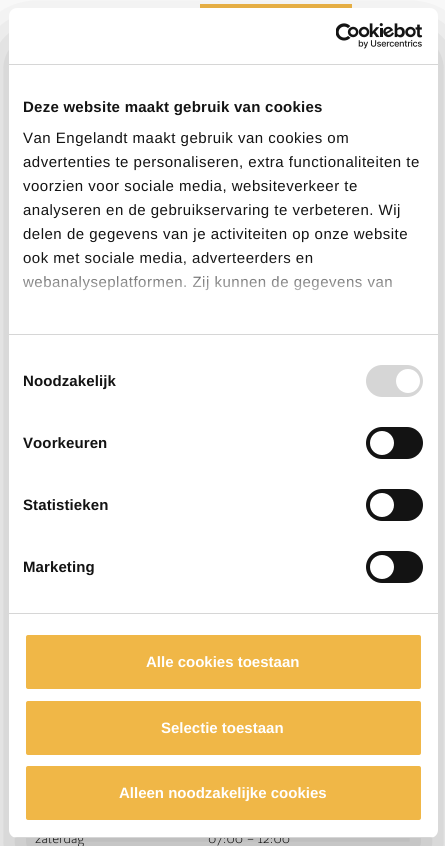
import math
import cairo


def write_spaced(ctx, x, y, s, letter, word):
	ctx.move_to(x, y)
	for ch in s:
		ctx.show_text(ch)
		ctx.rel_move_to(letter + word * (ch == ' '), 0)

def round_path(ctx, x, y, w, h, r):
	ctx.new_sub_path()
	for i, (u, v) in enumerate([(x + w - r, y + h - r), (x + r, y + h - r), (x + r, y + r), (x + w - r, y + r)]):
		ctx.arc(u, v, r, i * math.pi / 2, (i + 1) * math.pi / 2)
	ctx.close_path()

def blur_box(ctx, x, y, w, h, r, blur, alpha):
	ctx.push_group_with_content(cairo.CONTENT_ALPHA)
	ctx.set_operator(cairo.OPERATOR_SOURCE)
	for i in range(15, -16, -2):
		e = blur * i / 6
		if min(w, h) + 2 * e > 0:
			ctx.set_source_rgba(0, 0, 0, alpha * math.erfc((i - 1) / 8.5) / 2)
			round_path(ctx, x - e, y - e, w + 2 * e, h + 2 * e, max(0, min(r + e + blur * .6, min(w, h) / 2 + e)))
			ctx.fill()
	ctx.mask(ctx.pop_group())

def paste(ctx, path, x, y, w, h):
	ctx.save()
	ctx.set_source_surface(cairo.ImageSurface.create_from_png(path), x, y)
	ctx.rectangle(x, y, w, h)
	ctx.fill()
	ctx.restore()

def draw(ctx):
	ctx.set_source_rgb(1, 1, 1)
	ctx.paint()
	ctx.set_source_rgb(0.941, 0.718, 0.278)
	ctx.rectangle(200, 4, 152, 4)
	ctx.fill()
	paste(ctx, 'media/1.png', 15, 8, 2, 1)
	ctx.set_source_rgb(0, 0, 0)
	blur_box(ctx, 9, 40, 429, 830, 8, 34, 0.3)
	ctx.select_font_face('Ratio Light')
	ctx.set_font_size(14)
	ctx.set_source_rgb(0, 0, 0)
	ctx.move_to(35, 843)
	ctx.show_text('zaterdag')
	ctx.move_to(208, 843)
	ctx.show_text('07:00 – 12:00')
	ctx.set_source_rgb(1, 1, 1)
	round_path(ctx, 9, 8, 429, 830, 8)
	ctx.fill()
	ctx.set_source_rgb(0.839, 0.839, 0.839)
	ctx.rectangle(9, 64, 429, 1)
	ctx.fill()
	paste(ctx, 'media/2.png', 336, 23, 87, 26)
	ctx.rectangle(9, 334, 429, 1)
	ctx.fill()
	ctx.select_font_face('Liberation Sans', cairo.FONT_SLANT_NORMAL, cairo.FONT_WEIGHT_BOLD)
	ctx.set_font_size(15)
	ctx.set_source_rgb(0.078, 0.078, 0.078)
	write_spaced(ctx, 23, 112, 'Deze website maakt gebruik van cookies', 0.25, 0)
	ctx.select_font_face('Liberation Sans')
	for x, y, s in [
		(23, 143, 'Van Engelandt maakt gebruik van cookies om'),
		(23, 167, 'advertenties te personaliseren, extra functionaliteiten te'),
		(23, 191, 'voorzien voor sociale media, websiteverkeer te'),
		(23, 215, 'analyseren en de gebruikservaring te verbeteren. Wij'),
		(23, 239, 'delen de gegevens van je activiteiten op onze website'),
		(23, 263, 'ook met sociale media, adverteerders en'),
		(23, 287, 'webanalyseplatformen. Zij kunnen de gegevens van'),
	]:
		write_spaced(ctx, x, y, s, 0.5, 0)
	gradient = cairo.LinearGradient(217, 334, 217, 259)
	gradient.add_color_stop_rgba(0, 1, 1, 1, 1)
	gradient.add_color_stop_rgba(0.5, 1, 1, 1, 0.8)
	gradient.add_color_stop_rgba(1, 1, 1, 1, 0)
	ctx.set_source(gradient)
	ctx.rectangle(23, 260, 369, 31)
	ctx.fill()
	ctx.set_source_rgb(0.839, 0.839, 0.839)
	ctx.rectangle(9, 613, 429, 1)
	ctx.fill()
	ctx.select_font_face('Liberation Sans', cairo.FONT_SLANT_NORMAL, cairo.FONT_WEIGHT_BOLD)
	ctx.set_source_rgb(0.078, 0.078, 0.078)
	write_spaced(ctx, 23, 386, 'Noodzakelijk', 0.1, 0)
	ctx.set_source_rgb(0.839, 0.839, 0.839)
	round_path(ctx, 366, 365, 57, 32, 16)
	ctx.fill()
	ctx.set_source_rgb(1, 1, 1)
	ctx.arc(408, 381, 12, 0, 2 * math.pi)
	ctx.fill()
	ctx.set_source_rgb(0.078, 0.078, 0.078)
	write_spaced(ctx, 23, 448, 'Voorkeuren', 0.1, 0)
	round_path(ctx, 366, 427, 57, 32, 16)
	ctx.fill()
	ctx.set_source_rgb(1, 1, 1)
	ctx.arc(382, 443, 12, 0, 2 * math.pi)
	ctx.fill()
	ctx.set_source_rgb(0.078, 0.078, 0.078)
	write_spaced(ctx, 23, 510, 'Statistieken', 0.1, 0)
	round_path(ctx, 366, 489, 57, 32, 16)
	ctx.fill()
	ctx.set_source_rgb(1, 1, 1)
	ctx.arc(382, 505, 12, 0, 2 * math.pi)
	ctx.fill()
	ctx.set_source_rgb(0.078, 0.078, 0.078)
	write_spaced(ctx, 23, 572, 'Marketing', 0.1, 0)
	round_path(ctx, 366, 551, 57, 32, 16)
	ctx.fill()
	ctx.set_source_rgb(1, 1, 1)
	ctx.arc(382, 567, 12, 0, 2 * math.pi)
	ctx.fill()
	ctx.save()
	round_path(ctx, 9, 8, 429, 830, 8)
	ctx.clip()
	ctx.set_source_rgb(0.839, 0.839, 0.839)
	ctx.rectangle(9, 837, 429, 1)
	ctx.fill()
	ctx.restore()
	ctx.set_source_rgb(0.941, 0.718, 0.278)
	round_path(ctx, 25, 634, 397, 56, 3)
	ctx.fill_preserve()
	ctx.set_source_rgb(1, 1, 1)
	ctx.stroke()
	ctx.move_to(146, 667)
	ctx.show_text('Alle cookies toestaan')
	ctx.set_source_rgb(0.941, 0.718, 0.278)
	round_path(ctx, 25, 700, 397, 56, 3)
	ctx.fill_preserve()
	ctx.set_source_rgb(1, 1, 1)
	ctx.stroke()
	ctx.move_to(161, 733)
	ctx.show_text('Selectie toestaan')
	ctx.set_source_rgb(0.941, 0.718, 0.278)
	round_path(ctx, 25, 765, 397, 56, 3)
	ctx.fill_preserve()
	ctx.set_source_rgb(1, 1, 1)
	ctx.stroke()
	ctx.move_to(119, 798)
	ctx.show_text('Alleen noodzakelijke cookies')


surface = cairo.ImageSurface(cairo.FORMAT_RGB24, 445, 846)
ctx = cairo.Context(surface)
options = cairo.FontOptions()
options.set_hint_metrics(cairo.HINT_METRICS_OFF)
options.set_hint_style(cairo.HINT_STYLE_NONE)
ctx.set_font_options(options)
ctx.set_miter_limit(4)
draw(ctx)
surface.write_to_png('image.png')
